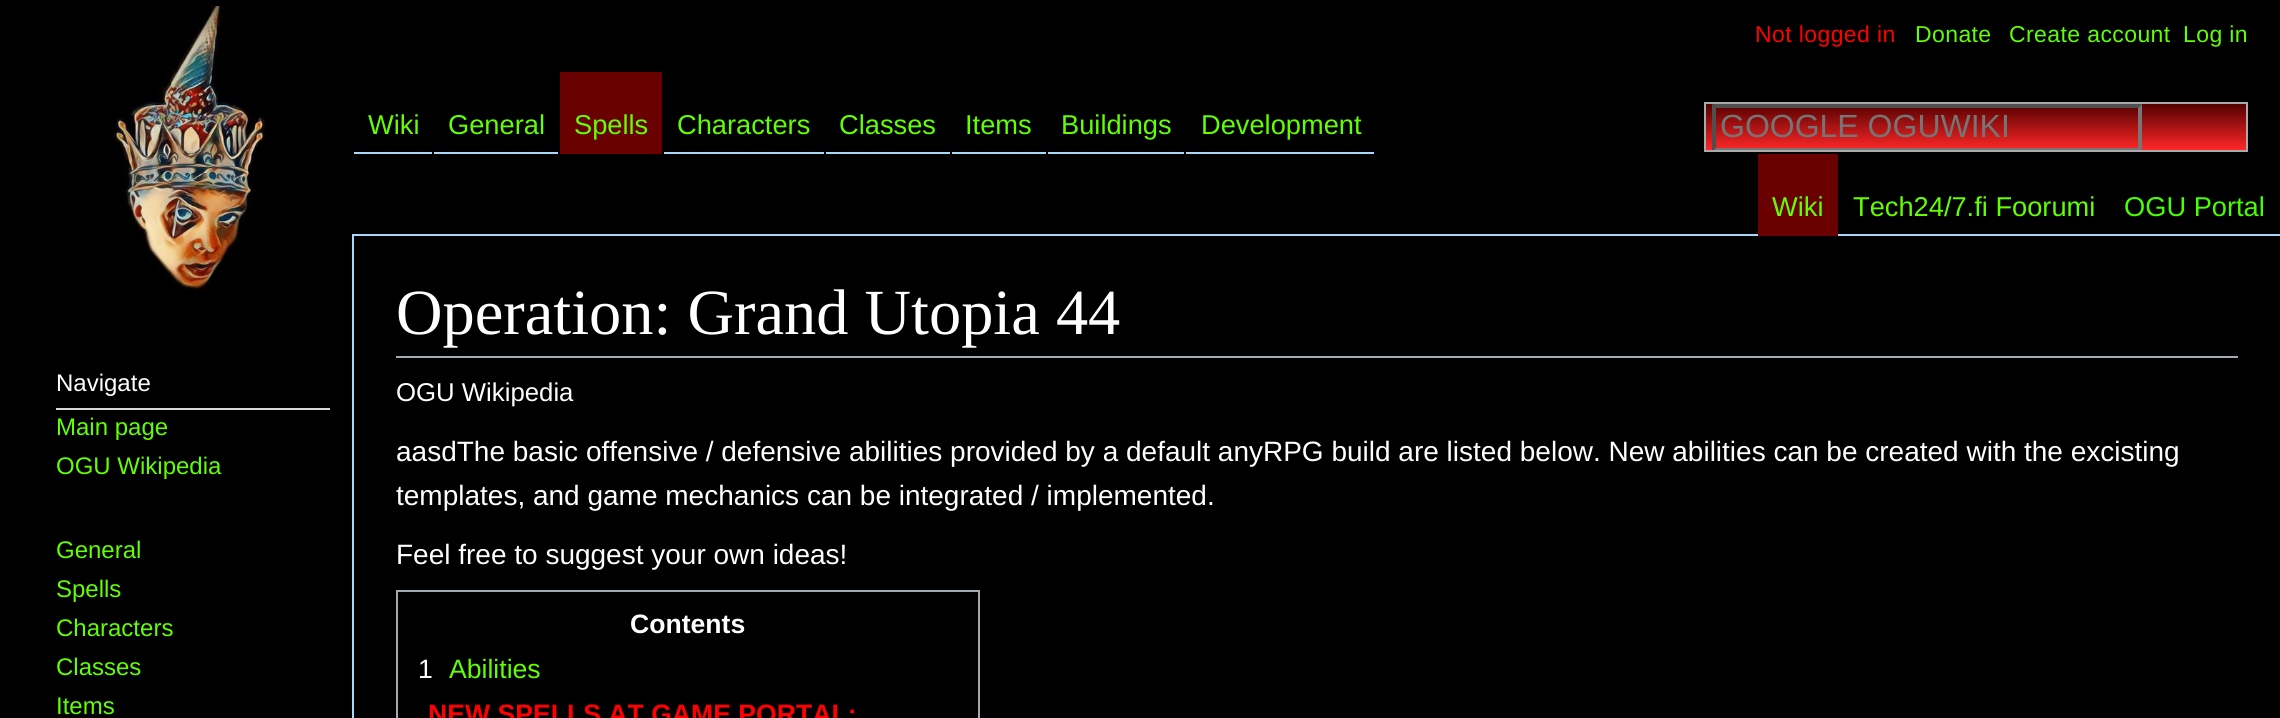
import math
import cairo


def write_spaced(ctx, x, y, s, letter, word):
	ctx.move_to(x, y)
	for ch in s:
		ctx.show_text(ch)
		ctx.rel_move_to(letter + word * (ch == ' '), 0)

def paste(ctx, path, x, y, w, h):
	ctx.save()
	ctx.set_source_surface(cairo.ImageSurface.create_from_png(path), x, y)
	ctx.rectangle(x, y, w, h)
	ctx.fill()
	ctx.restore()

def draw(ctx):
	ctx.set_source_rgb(0, 0, 0)
	ctx.paint()
	paste(ctx, 'media/1.png', 114, 6, 152, 285)
	ctx.set_source_rgb(0.847, 0.847, 0.847)
	ctx.rectangle(56, 408, 274, 2)
	ctx.fill()
	ctx.select_font_face('Liberation Sans')
	ctx.set_font_size(24)
	ctx.set_source_rgb(1, 1, 1)
	ctx.move_to(56, 391)
	ctx.show_text('Navigate')
	ctx.set_source_rgb(0.384, 1, 0)
	for x, y, s in [
		(56, 435, 'Main page'),
		(56, 474, 'OGU Wikipedia'),
		(56, 558, 'General'),
		(56, 597, 'Spells'),
		(56, 636, 'Characters'),
		(56, 675, 'Classes'),
		(56, 714, 'Items'),
	]:
		ctx.move_to(x, y)
		ctx.show_text(s)
	ctx.set_font_size(23)
	ctx.set_source_rgb(1, 0, 0)
	write_spaced(ctx, 1755, 42, 'Not logged in', 0.4, 0)
	ctx.set_source_rgb(0.384, 1, 0)
	for x, y, s in [
		(1915, 42, 'Donate'),
		(2009, 42, 'Create account'),
		(2183, 42, 'Log in'),
	]:
		write_spaced(ctx, x, y, s, 0.4, 0)
	ctx.set_source_rgb(0.655, 0.843, 0.976)
	ctx.rectangle(354, 152, 78, 2)
	ctx.fill()
	ctx.set_font_size(27.25)
	ctx.set_source_rgb(0.384, 1, 0)
	ctx.move_to(368, 134)
	ctx.show_text('Wiki')
	ctx.set_source_rgb(0.655, 0.843, 0.976)
	ctx.rectangle(434, 152, 124, 2)
	ctx.fill()
	ctx.set_source_rgb(0.384, 1, 0)
	ctx.move_to(448, 134)
	ctx.show_text('General')
	ctx.set_source_rgb(0.416, 0.004, 0.004)
	ctx.rectangle(560, 72, 102, 82)
	ctx.fill()
	ctx.set_source_rgb(0.384, 1, 0)
	ctx.move_to(574, 134)
	ctx.show_text('Spells')
	ctx.set_source_rgb(0.655, 0.843, 0.976)
	ctx.rectangle(664, 152, 160, 2)
	ctx.fill()
	ctx.set_source_rgb(0.384, 1, 0)
	ctx.move_to(677, 134)
	ctx.show_text('Characters')
	ctx.set_source_rgb(0.655, 0.843, 0.976)
	ctx.rectangle(826, 152, 124, 2)
	ctx.fill()
	ctx.set_source_rgb(0.384, 1, 0)
	ctx.move_to(839, 134)
	ctx.show_text('Classes')
	ctx.set_source_rgb(0.655, 0.843, 0.976)
	ctx.rectangle(952, 152, 94, 2)
	ctx.fill()
	ctx.set_source_rgb(0.384, 1, 0)
	ctx.move_to(965, 134)
	ctx.show_text('Items')
	ctx.set_source_rgb(0.655, 0.843, 0.976)
	ctx.rectangle(1048, 152, 136, 2)
	ctx.fill()
	ctx.set_source_rgb(0.384, 1, 0)
	ctx.move_to(1061, 134)
	ctx.show_text('Buildings')
	ctx.set_source_rgb(0.655, 0.843, 0.976)
	ctx.rectangle(1186, 152, 188, 2)
	ctx.fill()
	ctx.set_source_rgb(0.384, 1, 0)
	ctx.move_to(1201, 134)
	ctx.show_text('Development')
	gradient = cairo.LinearGradient(1976, 104, 1976, 150)
	gradient.add_color_stop_rgba(0, 0.329, 0, 0, 1)
	gradient.add_color_stop_rgba(1, 1, 0.153, 0.153, 1)
	ctx.set_source(gradient)
	ctx.rectangle(1706, 104, 540, 46)
	ctx.fill()
	ctx.rectangle(1705, 103, 542, 48)
	ctx.set_source_rgb(0.667, 0.667, 0.667)
	ctx.stroke()
	ctx.set_source_rgb(0.31, 0.31, 0.31)
	ctx.new_path()
	ctx.move_to(1712, 104)
	ctx.line_to(2142, 104)
	ctx.line_to(2138, 108)
	ctx.line_to(1716, 108)
	ctx.close_path()
	ctx.fill()
	ctx.save()
	ctx.rectangle(1706, 104, 540, 46)
	ctx.clip()
	ctx.set_source_rgb(0.463, 0.463, 0.463)
	ctx.new_path()
	ctx.move_to(2142, 104)
	ctx.line_to(2142, 152)
	ctx.line_to(2138, 148)
	ctx.line_to(2138, 108)
	ctx.close_path()
	ctx.fill()
	ctx.new_path()
	ctx.move_to(2142, 152)
	ctx.line_to(1712, 152)
	ctx.line_to(1716, 148)
	ctx.line_to(2138, 148)
	ctx.close_path()
	ctx.fill()
	ctx.set_source_rgb(0.31, 0.31, 0.31)
	ctx.new_path()
	ctx.move_to(1712, 152)
	ctx.line_to(1712, 104)
	ctx.line_to(1716, 108)
	ctx.line_to(1716, 148)
	ctx.close_path()
	ctx.fill()
	ctx.restore()
	ctx.set_font_size(32)
	ctx.set_source_rgb(0.459, 0.459, 0.459)
	ctx.move_to(1720, 137)
	ctx.show_text('GOOGLE OGUWIKI')
	ctx.set_source_rgb(0.655, 0.843, 0.976)
	ctx.rectangle(352, 234, 1928, 2)
	ctx.fill()
	ctx.set_source_rgb(0.416, 0.004, 0.004)
	ctx.rectangle(1758, 154, 80, 82)
	ctx.fill()
	ctx.set_font_size(27.25)
	ctx.set_source_rgb(0.384, 1, 0)
	ctx.move_to(1772, 216)
	ctx.show_text('Wiki')
	ctx.move_to(1853, 216)
	ctx.show_text('Tech24/7.fi Foorumi')
	ctx.set_source_rgb(0.282, 1, 0)
	ctx.move_to(2124, 216)
	ctx.show_text('OGU Portal')
	ctx.set_source_rgb(0.655, 0.843, 0.976)
	ctx.rectangle(352, 234, 2, 484)
	ctx.fill()
	ctx.set_source_rgb(0.635, 0.663, 0.694)
	ctx.rectangle(396, 356, 1842, 2)
	ctx.fill()
	ctx.select_font_face('Liberation Serif')
	ctx.set_font_size(64.4)
	ctx.set_source_rgb(1, 1, 1)
	ctx.move_to(396, 334)
	ctx.show_text('Operation: Grand Utopia 44')
	ctx.select_font_face('Liberation Sans')
	ctx.set_font_size(25.75)
	ctx.move_to(396, 401)
	ctx.show_text('OGU Wikipedia')
	ctx.set_font_size(28)
	for x, y, s in [
		(396, 461, 'aasdThe basic offensive / defensive abilities provided by a default anyRPG build are listed below. New abilities can be created with the excisting'),
		(396, 505, 'templates, and game mechanics can be integrated / implemented.'),
		(396, 564, 'Feel free to suggest your own ideas!'),
	]:
		ctx.move_to(x, y)
		ctx.show_text(s)
	ctx.rectangle(397, 591, 582, 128)
	ctx.set_source_rgb(0.635, 0.663, 0.694)
	ctx.stroke()
	ctx.select_font_face('Liberation Sans', cairo.FONT_SLANT_NORMAL, cairo.FONT_WEIGHT_BOLD)
	ctx.set_font_size(26.6)
	ctx.set_source_rgb(1, 1, 1)
	ctx.move_to(630, 633)
	ctx.show_text('Contents')
	ctx.select_font_face('Liberation Sans')
	ctx.move_to(418, 678)
	ctx.show_text('1')
	ctx.set_source_rgb(0.384, 1, 0)
	ctx.move_to(449, 678)
	ctx.show_text('Abilities')
	ctx.select_font_face('Liberation Sans', cairo.FONT_SLANT_NORMAL, cairo.FONT_WEIGHT_BOLD)
	ctx.set_source_rgb(1, 0, 0)
	ctx.move_to(428, 723)
	ctx.show_text('NEW SPELLS AT GAME PORTAL:')


surface = cairo.ImageSurface(cairo.FORMAT_RGB24, 2280, 718)
ctx = cairo.Context(surface)
options = cairo.FontOptions()
options.set_hint_metrics(cairo.HINT_METRICS_OFF)
options.set_hint_style(cairo.HINT_STYLE_NONE)
ctx.set_font_options(options)
ctx.set_miter_limit(4)
draw(ctx)
surface.write_to_png('image.png')
